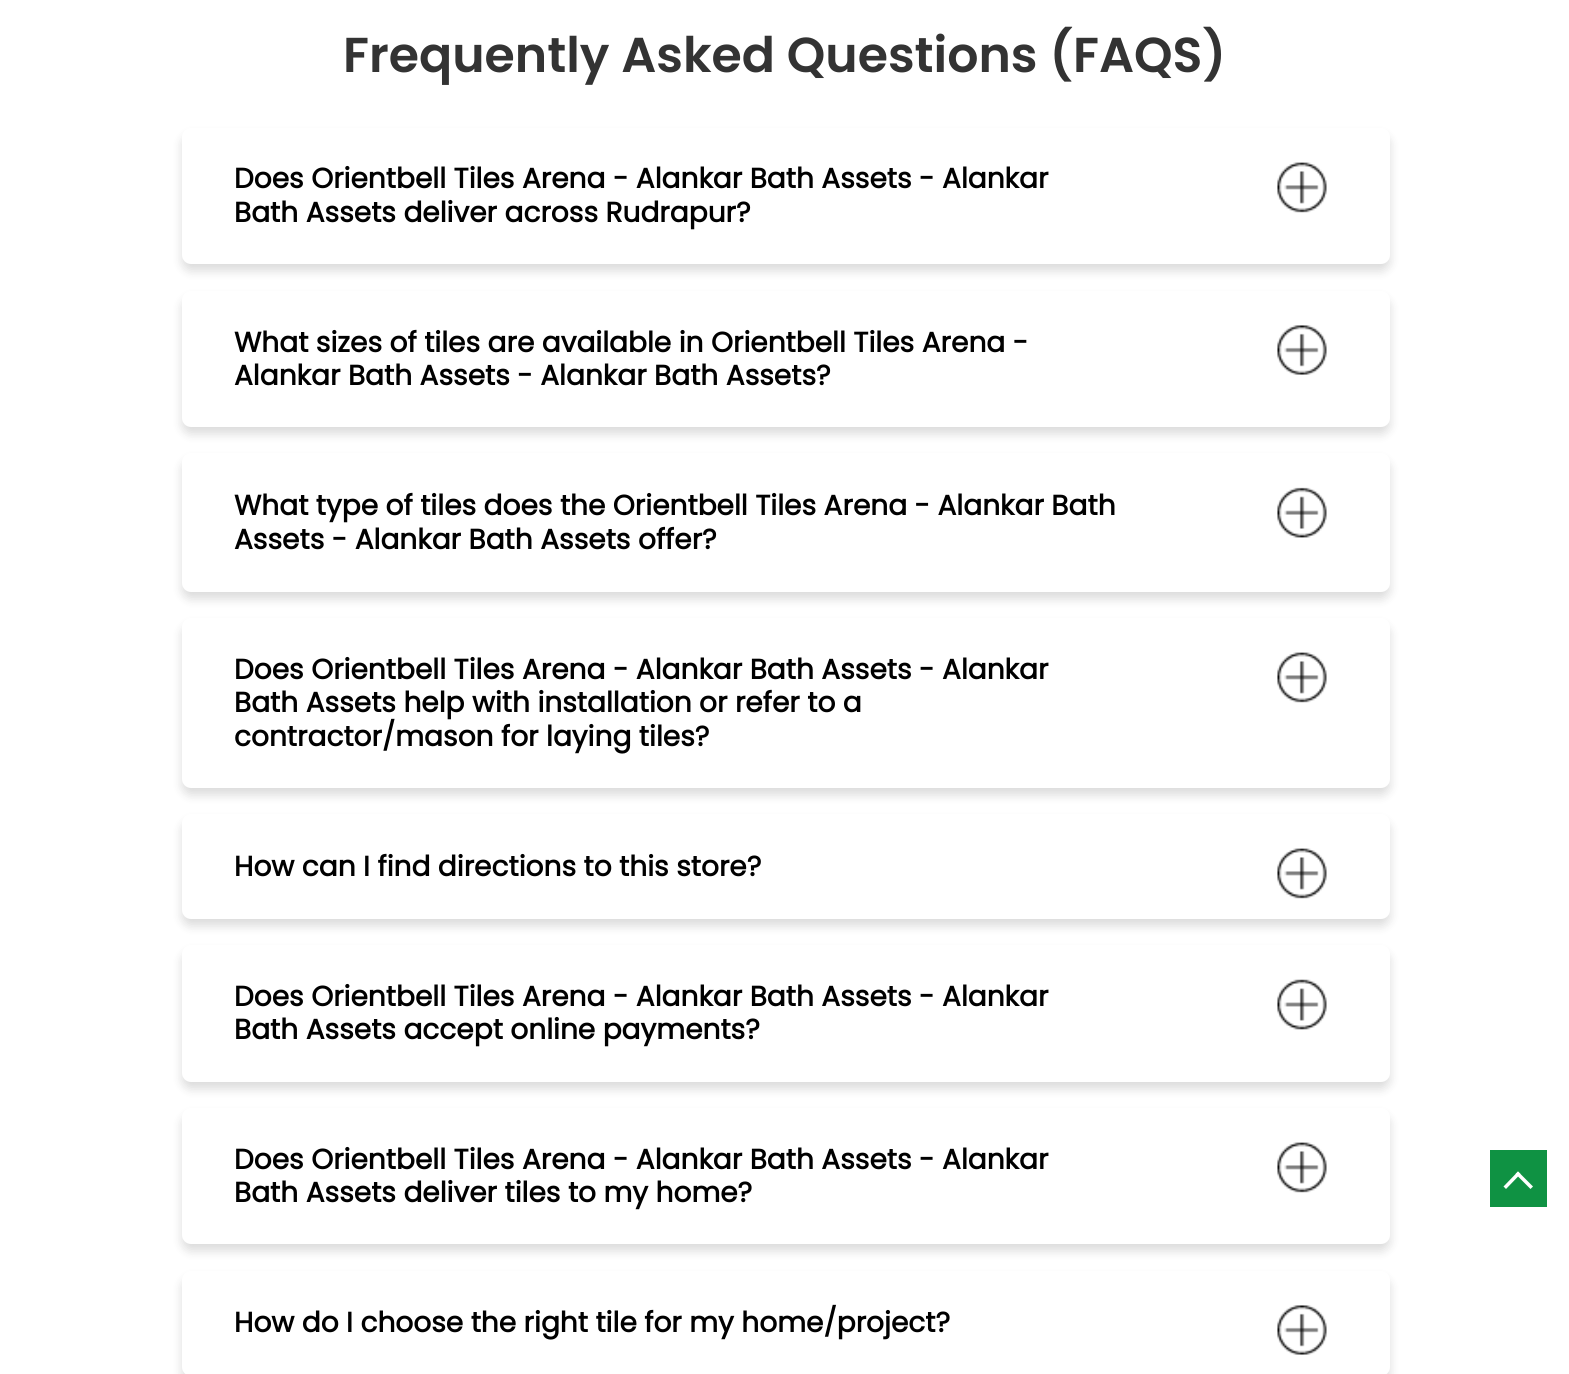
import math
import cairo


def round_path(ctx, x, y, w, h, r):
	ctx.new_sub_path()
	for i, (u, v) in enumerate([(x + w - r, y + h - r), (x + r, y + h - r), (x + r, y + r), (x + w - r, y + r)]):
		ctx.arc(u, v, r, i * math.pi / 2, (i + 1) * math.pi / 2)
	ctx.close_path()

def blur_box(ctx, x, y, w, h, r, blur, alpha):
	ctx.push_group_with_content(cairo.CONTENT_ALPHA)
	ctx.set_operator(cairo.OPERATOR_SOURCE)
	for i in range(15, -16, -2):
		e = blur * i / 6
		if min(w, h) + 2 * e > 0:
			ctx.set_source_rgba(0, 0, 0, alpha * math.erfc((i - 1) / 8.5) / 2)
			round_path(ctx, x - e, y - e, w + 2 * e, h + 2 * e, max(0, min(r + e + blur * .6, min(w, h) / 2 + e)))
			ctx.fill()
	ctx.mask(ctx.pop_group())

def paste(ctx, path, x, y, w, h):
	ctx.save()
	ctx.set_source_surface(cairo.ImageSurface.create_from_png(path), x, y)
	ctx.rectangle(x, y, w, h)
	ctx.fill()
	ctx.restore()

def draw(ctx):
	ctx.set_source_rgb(1, 1, 1)
	ctx.paint()
	ctx.select_font_face('Poppins SemiBold')
	ctx.set_font_size(49)
	ctx.set_source_rgb(0.2, 0.2, 0.2)
	ctx.move_to(343, 72)
	ctx.show_text('Frequently Asked Questions (FAQS)')
	ctx.set_source_rgb(0, 0, 0)
	blur_box(ctx, 182, 135, 1208, 136, 9, 5, 0.14)
	ctx.set_source_rgb(1, 1, 1)
	round_path(ctx, 182, 128, 1208, 136, 9)
	ctx.fill()
	ctx.select_font_face('Poppins', cairo.FONT_SLANT_NORMAL, cairo.FONT_WEIGHT_BOLD)
	ctx.set_font_size(28)
	ctx.set_source_rgb(0, 0, 0)
	ctx.move_to(234, 188)
	ctx.show_text('Does Orientbell Tiles Arena - Alankar Bath Assets - Alankar')
	paste(ctx, 'media/1.png', 1277, 162, 50, 51)
	ctx.move_to(234, 222)
	ctx.show_text('Bath Assets deliver across Rudrapur?')
	ctx.set_source_rgb(0, 0, 0)
	blur_box(ctx, 182, 298, 1208, 136, 9, 5, 0.14)
	ctx.set_source_rgb(1, 1, 1)
	round_path(ctx, 182, 291, 1208, 136, 9)
	ctx.fill()
	ctx.set_source_rgb(0, 0, 0)
	ctx.move_to(234, 352)
	ctx.show_text('What sizes of tiles are available in Orientbell Tiles Arena -')
	paste(ctx, 'media/2.png', 1277, 325, 50, 50)
	ctx.move_to(234, 385)
	ctx.show_text('Alankar Bath Assets - Alankar Bath Assets?')
	ctx.set_source_rgb(0, 0, 0)
	blur_box(ctx, 182, 460, 1208, 139, 9, 5, 0.14)
	ctx.set_source_rgb(1, 1, 1)
	round_path(ctx, 182, 453, 1208, 139, 9)
	ctx.fill()
	ctx.set_source_rgb(0, 0, 0)
	ctx.move_to(234, 515)
	ctx.show_text('What type of tiles does the Orientbell Tiles Arena - Alankar Bath')
	paste(ctx, 'media/3.png', 1277, 487, 50, 51)
	ctx.move_to(234, 549)
	ctx.show_text('Assets - Alankar Bath Assets offer?')
	ctx.set_source_rgb(0, 0, 0)
	blur_box(ctx, 182, 625, 1208, 170, 9, 5, 0.14)
	ctx.set_source_rgb(1, 1, 1)
	round_path(ctx, 182, 618, 1208, 170, 9)
	ctx.fill()
	ctx.set_source_rgb(0, 0, 0)
	ctx.move_to(234, 679)
	ctx.show_text('Does Orientbell Tiles Arena - Alankar Bath Assets - Alankar')
	paste(ctx, 'media/1.png', 1277, 652, 50, 51)
	ctx.move_to(234, 712)
	ctx.show_text('Bath Assets help with installation or refer to a')
	ctx.move_to(234, 746)
	ctx.show_text('contractor/mason for laying tiles?')
	ctx.set_source_rgb(0, 0, 0)
	blur_box(ctx, 182, 821, 1208, 105, 9, 5, 0.14)
	ctx.set_source_rgb(1, 1, 1)
	round_path(ctx, 182, 814, 1208, 105, 9)
	ctx.fill()
	ctx.set_source_rgb(0, 0, 0)
	ctx.move_to(234, 876)
	ctx.show_text('How can I find directions to this store?')
	paste(ctx, 'media/1.png', 1277, 848, 50, 51)
	ctx.set_source_rgb(0, 0, 0)
	blur_box(ctx, 182, 952, 1208, 137, 9, 5, 0.14)
	ctx.set_source_rgb(1, 1, 1)
	round_path(ctx, 182, 945, 1208, 137, 9)
	ctx.fill()
	ctx.set_source_rgb(0, 0, 0)
	ctx.move_to(234, 1006)
	ctx.show_text('Does Orientbell Tiles Arena - Alankar Bath Assets - Alankar')
	paste(ctx, 'media/4.png', 1277, 979, 50, 51)
	ctx.move_to(234, 1039)
	ctx.show_text('Bath Assets accept online payments?')
	ctx.set_source_rgb(0, 0, 0)
	blur_box(ctx, 182, 1115, 1208, 136, 9, 5, 0.14)
	ctx.set_source_rgb(1, 1, 1)
	round_path(ctx, 182, 1108, 1208, 136, 9)
	ctx.fill()
	ctx.set_source_rgb(0, 0, 0)
	ctx.move_to(234, 1169)
	ctx.show_text('Does Orientbell Tiles Arena - Alankar Bath Assets - Alankar')
	paste(ctx, 'media/1.png', 1277, 1142, 50, 51)
	ctx.move_to(234, 1202)
	ctx.show_text('Bath Assets deliver tiles to my home?')
	ctx.set_source_rgb(0, 0, 0)
	blur_box(ctx, 182, 1278, 1208, 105, 9, 5, 0.14)
	ctx.set_source_rgb(1, 1, 1)
	round_path(ctx, 182, 1271, 1208, 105, 9)
	ctx.fill()
	ctx.set_source_rgb(0, 0, 0)
	ctx.move_to(234, 1332)
	ctx.show_text('How do I choose the right tile for my home/project?')
	paste(ctx, 'media/2.png', 1277, 1305, 50, 50)
	ctx.set_source_rgb(0.059, 0.573, 0.263)
	ctx.rectangle(1490, 1150, 57, 57)
	ctx.fill()
	ctx.set_source_rgb(1, 1, 1)
	ctx.new_path()
	ctx.move_to(1506, 1189)
	ctx.line_to(1503.5, 1186.5)
	ctx.line_to(1518, 1171.5)
	ctx.line_to(1520.5, 1174)
	ctx.close_path()
	ctx.fill()
	ctx.new_path()
	ctx.move_to(1530.5, 1189)
	ctx.line_to(1515.5, 1174)
	ctx.line_to(1518, 1171.5)
	ctx.line_to(1533, 1186.5)
	ctx.close_path()
	ctx.fill()


surface = cairo.ImageSurface(cairo.FORMAT_RGB24, 1569, 1374)
ctx = cairo.Context(surface)
options = cairo.FontOptions()
options.set_hint_metrics(cairo.HINT_METRICS_OFF)
options.set_hint_style(cairo.HINT_STYLE_NONE)
ctx.set_font_options(options)
ctx.set_miter_limit(4)
draw(ctx)
surface.write_to_png('image.png')
